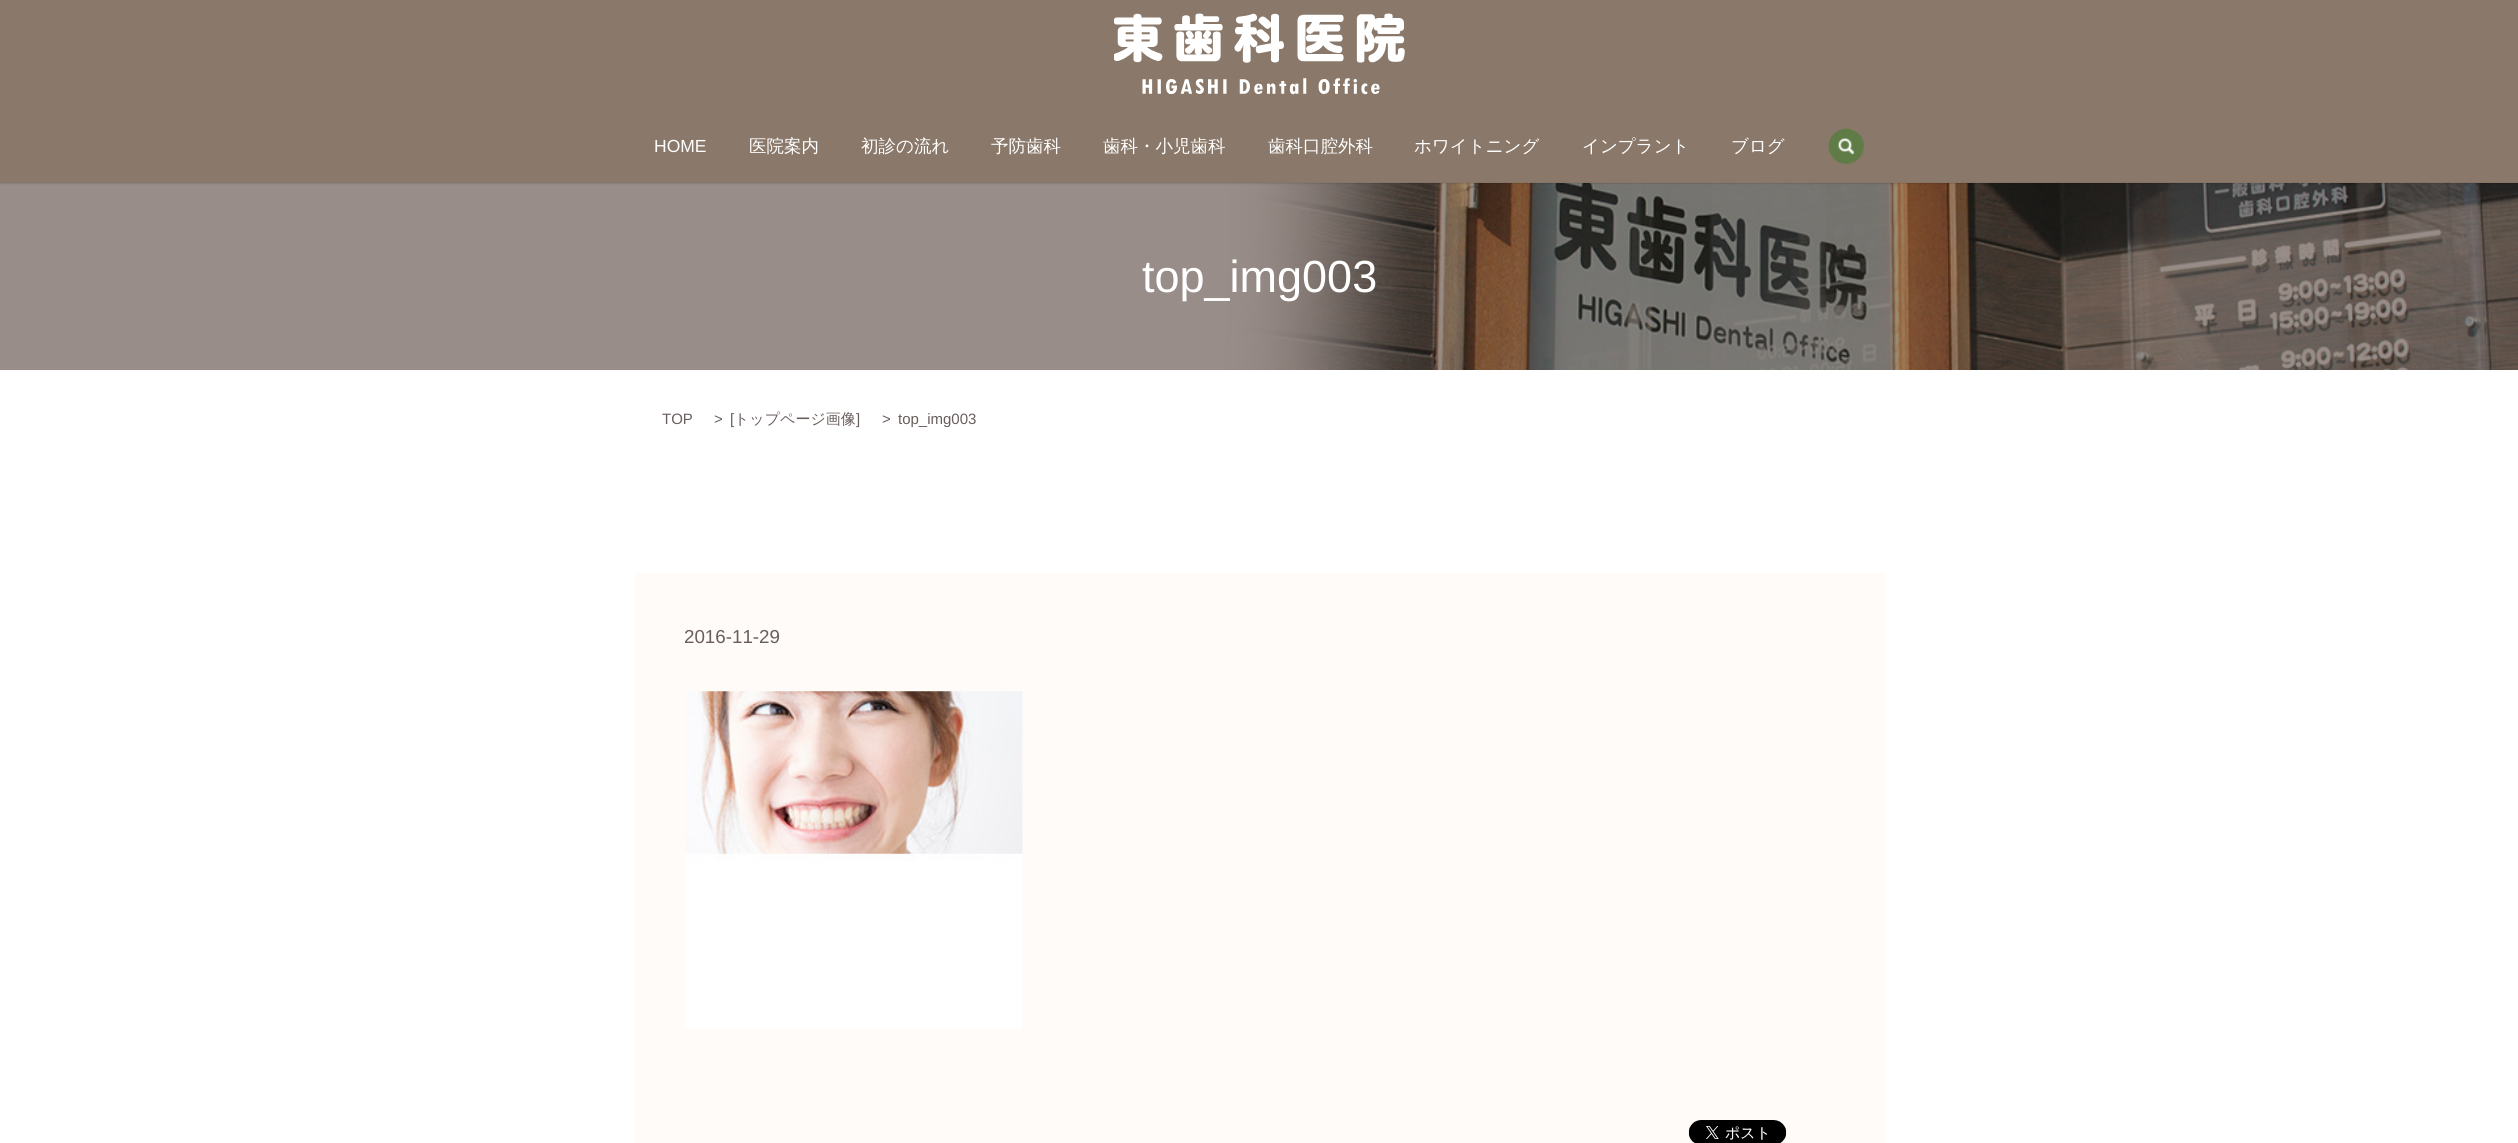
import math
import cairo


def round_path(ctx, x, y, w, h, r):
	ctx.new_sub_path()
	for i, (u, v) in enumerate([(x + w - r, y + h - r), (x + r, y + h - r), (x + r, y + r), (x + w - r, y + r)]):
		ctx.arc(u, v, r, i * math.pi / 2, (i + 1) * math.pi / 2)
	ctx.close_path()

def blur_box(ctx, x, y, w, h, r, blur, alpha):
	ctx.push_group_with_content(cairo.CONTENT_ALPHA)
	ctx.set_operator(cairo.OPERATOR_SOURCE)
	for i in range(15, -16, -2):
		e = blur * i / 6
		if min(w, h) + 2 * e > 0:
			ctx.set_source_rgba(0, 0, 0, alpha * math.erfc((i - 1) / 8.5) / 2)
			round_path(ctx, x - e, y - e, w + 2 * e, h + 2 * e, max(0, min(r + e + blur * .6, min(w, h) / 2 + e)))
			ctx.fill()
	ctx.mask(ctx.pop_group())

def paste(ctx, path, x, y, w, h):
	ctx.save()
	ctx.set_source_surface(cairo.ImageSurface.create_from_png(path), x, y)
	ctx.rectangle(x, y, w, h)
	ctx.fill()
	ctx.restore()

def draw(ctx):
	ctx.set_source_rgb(1, 1, 1)
	ctx.paint()
	paste(ctx, 'media/3.png', 0, 182, 2518, 188)
	ctx.save()
	ctx.set_fill_rule(cairo.FILL_RULE_EVEN_ODD)
	ctx.new_path()
	ctx.move_to(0, 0)
	ctx.line_to(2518, 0)
	ctx.line_to(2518, 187)
	ctx.line_to(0, 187)
	ctx.close_path()
	ctx.move_to(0, 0)
	ctx.line_to(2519, 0)
	ctx.line_to(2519, 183)
	ctx.line_to(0, 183)
	ctx.close_path()
	ctx.clip()
	ctx.set_source_rgb(0, 0, 0)
	blur_box(ctx, 0, 1, 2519, 183, 0, 0.5, 0.1)
	ctx.restore()
	ctx.set_source_rgba(0.494, 0.42, 0.353, 0.9)
	ctx.rectangle(0, 0, 2518, 183)
	ctx.fill()
	paste(ctx, 'media/1.png', 1114, 13, 291, 82)
	ctx.select_font_face('Liberation Sans')
	ctx.set_font_size(17.5)
	ctx.set_source_rgb(1, 1, 1)
	ctx.move_to(654, 152)
	ctx.show_text('HOME')
	ctx.select_font_face('WenQuanYi Zen Hei Medium')
	for x, y, s in [
		(749, 152, '医院案内'),
		(861, 152, '初診の流れ'),
		(991, 152, '予防歯科'),
		(1103, 152, '歯科・小児歯科'),
		(1268, 152, '歯科口腔外科'),
		(1414, 152, 'ホワイトニング'),
		(1582, 152, 'インプラント'),
		(1731, 152, 'ブログ'),
	]:
		ctx.move_to(x, y)
		ctx.show_text(s)
	paste(ctx, 'media/2.png', 1828, 128, 36, 36)
	ctx.select_font_face('Liberation Sans')
	ctx.set_font_size(45)
	ctx.move_to(1142, 292)
	ctx.show_text('top_img003')
	ctx.set_font_size(15)
	ctx.set_source_rgb(0.412, 0.369, 0.357)
	for x, y, s in [
		(662, 424, 'TOP'),
		(714, 424, '>'),
		(730, 424, '['),
	]:
		ctx.move_to(x, y)
		ctx.show_text(s)
	ctx.select_font_face('WenQuanYi Zen Hei Medium')
	ctx.move_to(734, 424)
	ctx.show_text('トップページ画像')
	ctx.select_font_face('Liberation Sans')
	for x, y, s in [
		(856, 424, ']'),
		(882, 424, '>'),
		(898, 424, 'top_img003'),
	]:
		ctx.move_to(x, y)
		ctx.show_text(s)
	ctx.set_source_rgb(1, 0.984, 0.969)
	ctx.rectangle(635, 573, 1250, 570)
	ctx.fill()
	ctx.set_font_size(18.75)
	ctx.set_source_rgb(0.412, 0.369, 0.357)
	ctx.move_to(684, 643)
	ctx.show_text('2016-11-29')
	paste(ctx, 'media/4.png', 685, 691, 338, 338)
	paste(ctx, 'media/5.png', 1688, 1120, 99, 23)


surface = cairo.ImageSurface(cairo.FORMAT_RGB24, 2518, 1143)
ctx = cairo.Context(surface)
options = cairo.FontOptions()
options.set_hint_metrics(cairo.HINT_METRICS_OFF)
options.set_hint_style(cairo.HINT_STYLE_NONE)
ctx.set_font_options(options)
ctx.set_miter_limit(4)
draw(ctx)
surface.write_to_png('image.png')
